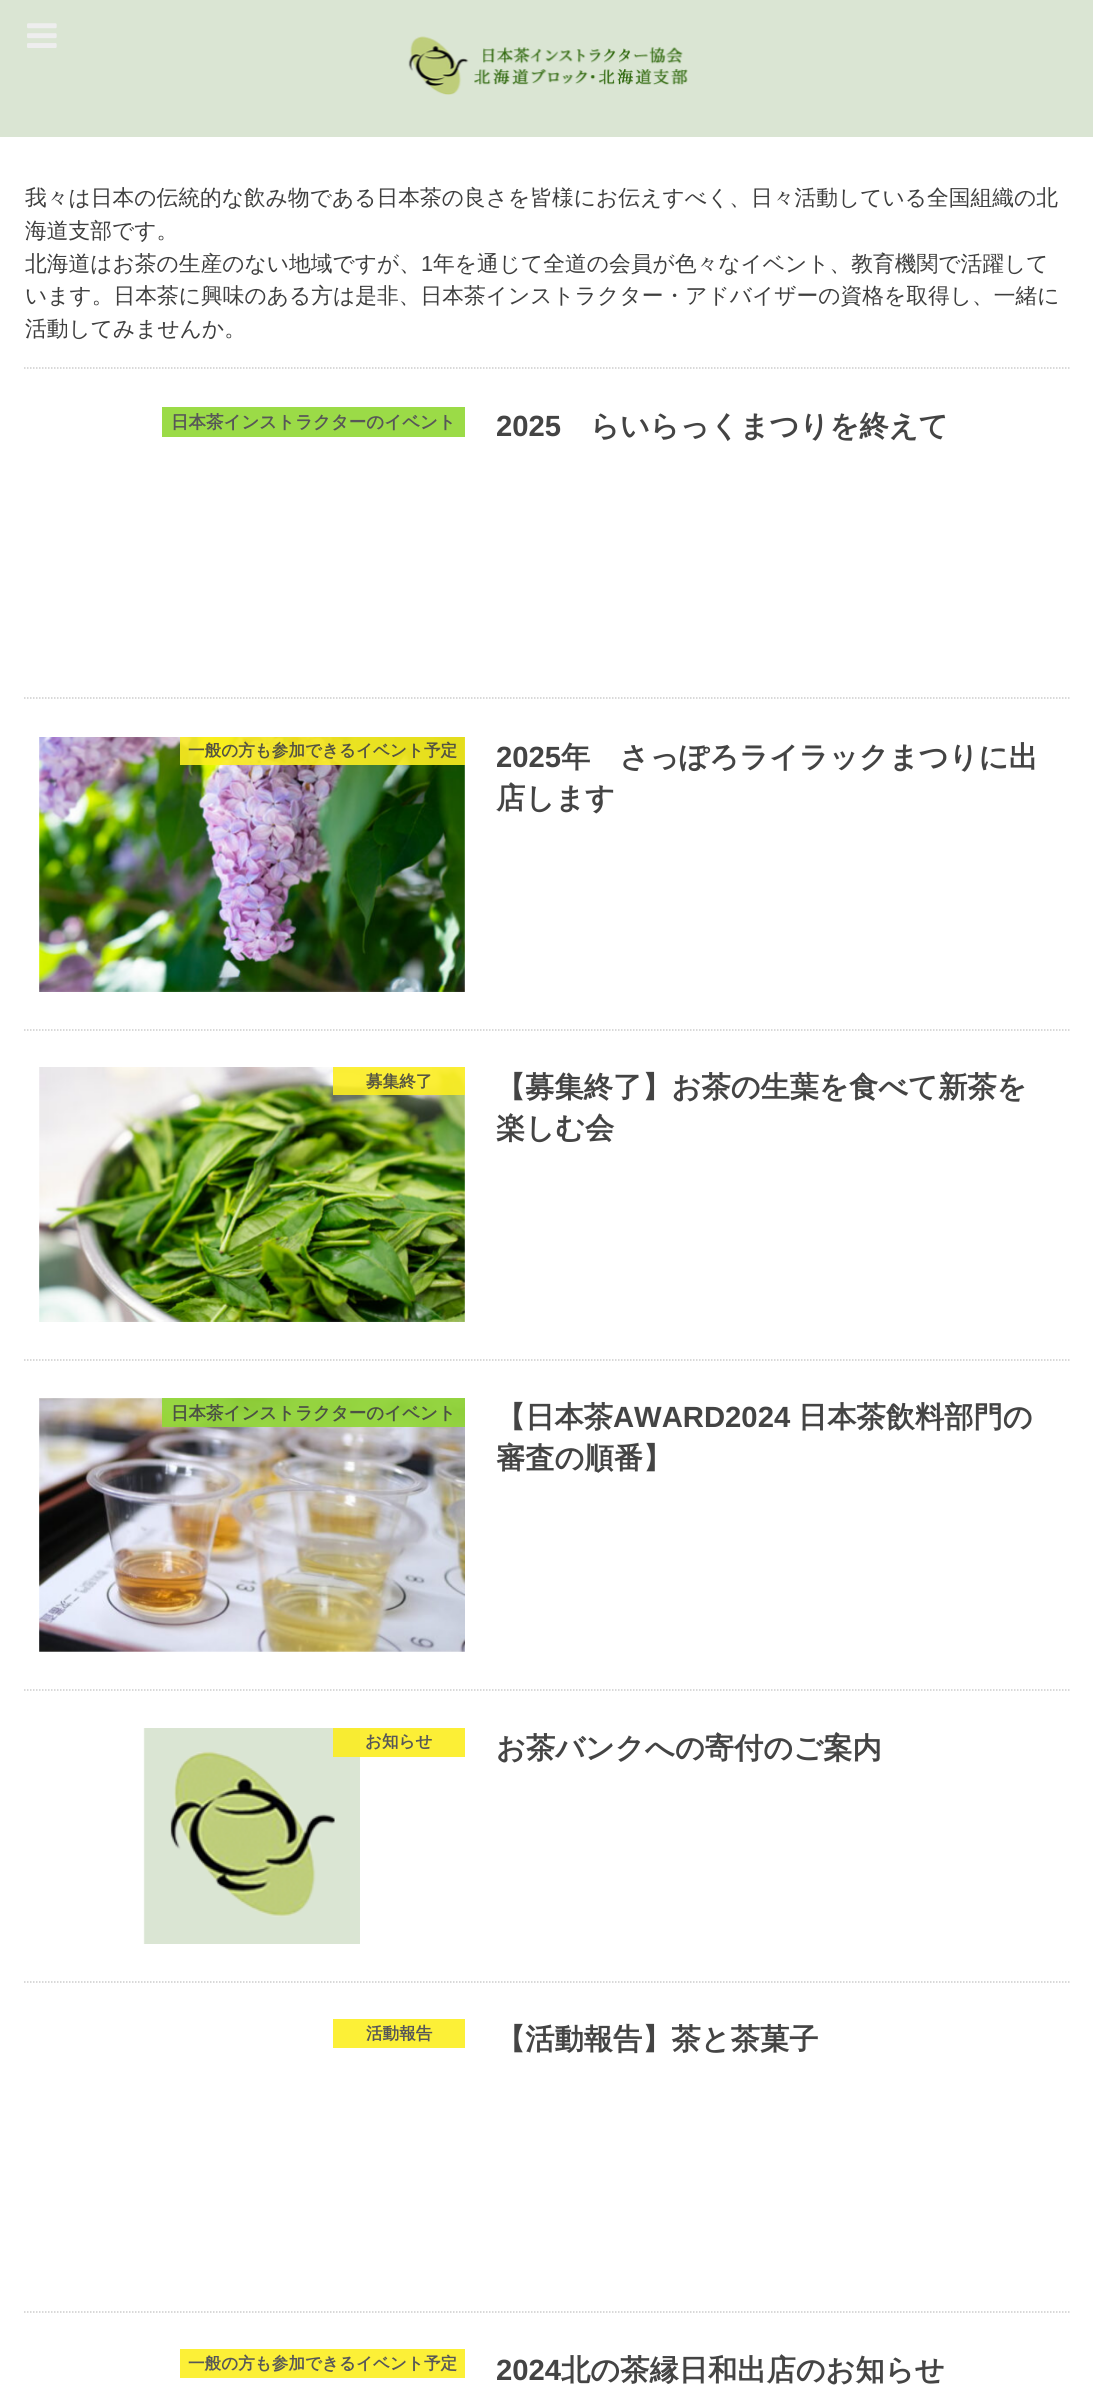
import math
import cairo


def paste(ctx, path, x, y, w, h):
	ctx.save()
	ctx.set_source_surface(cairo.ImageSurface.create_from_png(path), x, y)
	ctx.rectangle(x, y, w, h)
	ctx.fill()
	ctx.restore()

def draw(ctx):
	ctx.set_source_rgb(0.855, 0.898, 0.827)
	ctx.paint()
	paste(ctx, 'media/1.png', 27, 23, 30, 25)
	paste(ctx, 'media/2.png', 408, 36, 280, 59)
	ctx.set_source_rgb(1, 1, 1)
	ctx.rectangle(0, 137, 1093, 2266)
	ctx.fill()
	ctx.select_font_face('WenQuanYi Zen Hei Medium')
	ctx.set_font_size(21.75)
	ctx.set_source_rgb(0.243, 0.243, 0.243)
	for x, y, s in [
		(25, 205, '我々は日本の伝統的な飲み物である日本茶の良さを皆様にお伝えすべく、日々活動している全国組織の北'),
		(25, 238, '海道支部です。'),
		(25, 271, '北海道はお茶の生産のない地域ですが、'),
	]:
		ctx.move_to(x, y)
		ctx.show_text(s)
	ctx.select_font_face('Liberation Sans')
	ctx.move_to(421, 271)
	ctx.show_text('1')
	ctx.select_font_face('WenQuanYi Zen Hei Medium')
	for x, y, s in [
		(433, 271, '年を通じて全道の会員が色々なイベント、教育機関で活躍して'),
		(25, 303, 'います。日本茶に興味のある方は是非、日本茶インストラクター・アドバイザーの資格を取得し、一緒に'),
		(25, 336, '活動してみませんか。'),
	]:
		ctx.move_to(x, y)
		ctx.show_text(s)
	ctx.new_path()
	ctx.move_to(24, 368)
	ctx.line_to(1069.5, 368)
	ctx.set_source_rgb(0.8, 0.8, 0.8)
	ctx.set_line_width(1.5)
	ctx.set_dash([1.5, 1.5])
	ctx.stroke()
	ctx.new_path()
	ctx.move_to(24, 698)
	ctx.line_to(1069.5, 698)
	ctx.stroke()
	ctx.set_source_rgb(0.608, 0.859, 0.278)
	ctx.rectangle(162, 407, 303, 30)
	ctx.fill()
	ctx.select_font_face('WenQuanYi Zen Hei', cairo.FONT_SLANT_NORMAL, cairo.FONT_WEIGHT_BOLD)
	ctx.set_font_size(17.5)
	ctx.set_source_rgb(0.341, 0.341, 0.341)
	ctx.move_to(171, 428)
	ctx.show_text('日本茶インストラクターのイベント')
	ctx.select_font_face('Liberation Sans', cairo.FONT_SLANT_NORMAL, cairo.FONT_WEIGHT_BOLD)
	ctx.set_font_size(29.25)
	ctx.set_source_rgb(0.267, 0.267, 0.267)
	ctx.move_to(496, 436)
	ctx.show_text('2025')
	ctx.select_font_face('WenQuanYi Zen Hei', cairo.FONT_SLANT_NORMAL, cairo.FONT_WEIGHT_BOLD)
	ctx.move_to(590, 436)
	ctx.show_text('らいらっくまつりを終えて')
	ctx.new_path()
	ctx.move_to(24, 1030)
	ctx.line_to(1069.5, 1030)
	ctx.set_source_rgb(0.8, 0.8, 0.8)
	ctx.stroke()
	paste(ctx, 'media/3.png', 39, 737, 426, 255)
	ctx.set_source_rgba(0.988, 0.933, 0.129, 0.9)
	ctx.rectangle(180, 737, 285, 28)
	ctx.fill()
	ctx.set_font_size(16.6)
	ctx.set_source_rgb(0.333, 0.329, 0.255)
	ctx.move_to(188, 756)
	ctx.show_text('一般の方も参加できるイベント予定')
	ctx.select_font_face('Liberation Sans', cairo.FONT_SLANT_NORMAL, cairo.FONT_WEIGHT_BOLD)
	ctx.set_font_size(29.25)
	ctx.set_source_rgb(0.267, 0.267, 0.267)
	ctx.move_to(496, 767)
	ctx.show_text('2025')
	ctx.select_font_face('WenQuanYi Zen Hei', cairo.FONT_SLANT_NORMAL, cairo.FONT_WEIGHT_BOLD)
	ctx.move_to(561, 767)
	ctx.show_text('年　さっぽろライラックまつりに出')
	ctx.move_to(496, 808)
	ctx.show_text('店します')
	ctx.new_path()
	ctx.move_to(24, 1360)
	ctx.line_to(1069.5, 1360)
	ctx.set_source_rgb(0.8, 0.8, 0.8)
	ctx.stroke()
	paste(ctx, 'media/4.png', 39, 1067, 426, 255)
	ctx.set_source_rgba(0.988, 0.933, 0.129, 0.9)
	ctx.rectangle(333, 1067, 132, 28)
	ctx.fill()
	ctx.set_font_size(16.6)
	ctx.set_source_rgb(0.333, 0.329, 0.255)
	ctx.move_to(366, 1087)
	ctx.show_text('募集終了')
	ctx.set_font_size(29.25)
	ctx.set_source_rgb(0.267, 0.267, 0.267)
	ctx.move_to(496, 1097)
	ctx.show_text('【募集終了】お茶の生葉を食べて新茶を')
	ctx.move_to(496, 1138)
	ctx.show_text('楽しむ会')
	ctx.new_path()
	ctx.move_to(24, 1690)
	ctx.line_to(1069.5, 1690)
	ctx.set_source_rgb(0.8, 0.8, 0.8)
	ctx.stroke()
	paste(ctx, 'media/5.png', 39, 1398, 426, 254)
	ctx.set_source_rgba(0.565, 0.843, 0.2, 0.9)
	ctx.rectangle(162, 1398, 303, 29)
	ctx.fill()
	ctx.set_font_size(17.5)
	ctx.set_source_rgb(0.298, 0.322, 0.267)
	ctx.move_to(171, 1419)
	ctx.show_text('日本茶インストラクターのイベント')
	ctx.set_font_size(29.25)
	ctx.set_source_rgb(0.267, 0.267, 0.267)
	ctx.move_to(496, 1427)
	ctx.show_text('【日本茶')
	ctx.select_font_face('Liberation Sans', cairo.FONT_SLANT_NORMAL, cairo.FONT_WEIGHT_BOLD)
	ctx.move_to(613, 1427)
	ctx.show_text('AWARD2024')
	ctx.select_font_face('WenQuanYi Zen Hei', cairo.FONT_SLANT_NORMAL, cairo.FONT_WEIGHT_BOLD)
	ctx.move_to(798, 1427)
	ctx.show_text('日本茶飲料部門の')
	ctx.move_to(496, 1468)
	ctx.show_text('審査の順番】')
	ctx.new_path()
	ctx.move_to(24, 1982)
	ctx.line_to(1069.5, 1982)
	ctx.set_source_rgb(0.8, 0.8, 0.8)
	ctx.stroke()
	paste(ctx, 'media/6.png', 143, 1728, 217, 216)
	ctx.set_source_rgba(0.988, 0.933, 0.129, 0.9)
	ctx.rectangle(333, 1728, 132, 29)
	ctx.fill()
	ctx.set_font_size(16.6)
	ctx.set_source_rgb(0.341, 0.341, 0.341)
	ctx.move_to(365, 1747)
	ctx.show_text('お知らせ')
	ctx.set_font_size(29.25)
	ctx.set_source_rgb(0.267, 0.267, 0.267)
	ctx.move_to(496, 1758)
	ctx.show_text('お茶バンクへの寄付のご案内')
	ctx.new_path()
	ctx.move_to(24, 2312)
	ctx.line_to(1069.5, 2312)
	ctx.set_source_rgb(0.8, 0.8, 0.8)
	ctx.stroke()
	ctx.set_source_rgb(0.988, 0.941, 0.216)
	ctx.rectangle(333, 2019, 132, 29)
	ctx.fill()
	ctx.set_font_size(16.6)
	ctx.set_source_rgb(0.341, 0.341, 0.341)
	ctx.move_to(366, 2039)
	ctx.show_text('活動報告')
	ctx.set_font_size(29.25)
	ctx.set_source_rgb(0.267, 0.267, 0.267)
	ctx.move_to(496, 2049)
	ctx.show_text('【活動報告】茶と茶菓子')
	ctx.set_source_rgb(0.988, 0.941, 0.216)
	ctx.rectangle(180, 2349, 285, 29)
	ctx.fill()
	ctx.set_font_size(16.6)
	ctx.set_source_rgb(0.341, 0.341, 0.341)
	ctx.move_to(188, 2369)
	ctx.show_text('一般の方も参加できるイベント予定')
	ctx.select_font_face('Liberation Sans', cairo.FONT_SLANT_NORMAL, cairo.FONT_WEIGHT_BOLD)
	ctx.set_font_size(29.25)
	ctx.set_source_rgb(0.267, 0.267, 0.267)
	ctx.move_to(496, 2380)
	ctx.show_text('2024')
	ctx.select_font_face('WenQuanYi Zen Hei', cairo.FONT_SLANT_NORMAL, cairo.FONT_WEIGHT_BOLD)
	ctx.move_to(561, 2380)
	ctx.show_text('北の茶縁日和出店のお知らせ')


surface = cairo.ImageSurface(cairo.FORMAT_RGB24, 1093, 2403)
ctx = cairo.Context(surface)
options = cairo.FontOptions()
options.set_hint_metrics(cairo.HINT_METRICS_OFF)
options.set_hint_style(cairo.HINT_STYLE_NONE)
ctx.set_font_options(options)
ctx.set_miter_limit(4)
draw(ctx)
surface.write_to_png('image.png')
